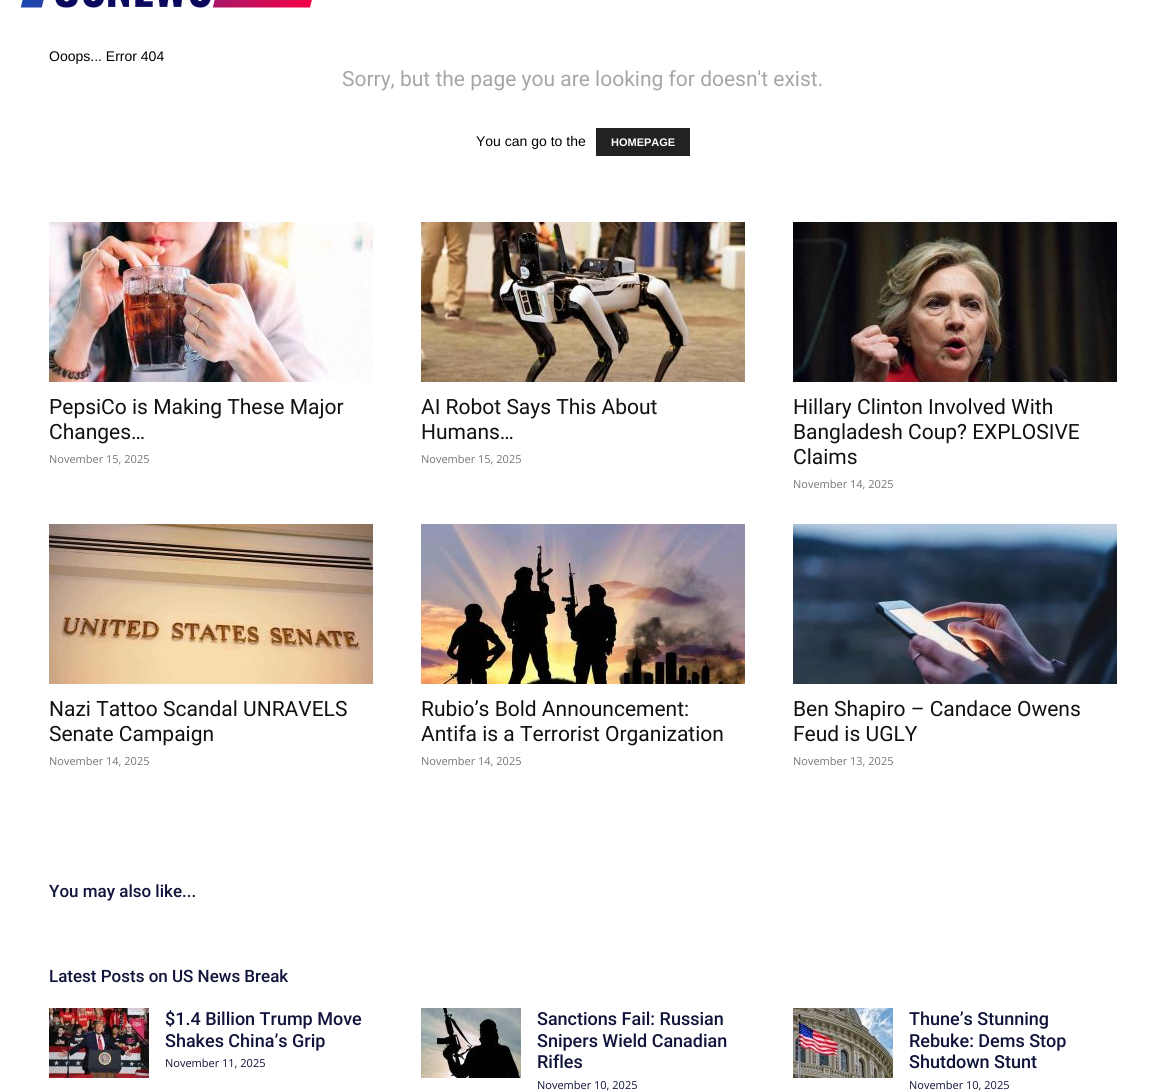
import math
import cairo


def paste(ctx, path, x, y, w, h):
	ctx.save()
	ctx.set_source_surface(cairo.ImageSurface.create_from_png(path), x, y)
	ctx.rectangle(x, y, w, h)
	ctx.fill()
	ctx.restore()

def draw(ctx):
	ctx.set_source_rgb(1, 1, 1)
	ctx.paint()
	paste(ctx, 'media/1.png', 20, 0, 292, 8)
	ctx.select_font_face('Liberation Sans')
	ctx.set_font_size(14)
	ctx.set_source_rgb(0, 0, 0)
	ctx.move_to(49, 61)
	ctx.show_text('Ooops... Error 404')
	ctx.select_font_face('Roboto')
	ctx.set_font_size(21)
	ctx.set_source_rgb(0.651, 0.651, 0.651)
	ctx.move_to(342, 86)
	ctx.show_text('Sorry, but the page you are looking for doesn\'t exist.')
	ctx.select_font_face('Liberation Sans')
	ctx.set_font_size(14)
	ctx.set_source_rgb(0, 0, 0)
	ctx.move_to(476, 146)
	ctx.show_text('You can go to the')
	ctx.set_source_rgb(0.133, 0.133, 0.133)
	ctx.rectangle(596, 128, 94, 28)
	ctx.fill()
	ctx.select_font_face('Liberation Sans', cairo.FONT_SLANT_NORMAL, cairo.FONT_WEIGHT_BOLD)
	ctx.set_font_size(11)
	ctx.set_source_rgb(1, 1, 1)
	ctx.move_to(611, 146)
	ctx.show_text('HOMEPAGE')
	paste(ctx, 'media/2.png', 49, 222, 324, 160)
	ctx.select_font_face('Roboto')
	ctx.set_font_size(21)
	ctx.set_source_rgb(0.067, 0.067, 0.067)
	ctx.move_to(49, 414)
	ctx.show_text('PepsiCo is Making These Major')
	ctx.move_to(49, 439)
	ctx.show_text('Changes…')
	ctx.select_font_face('Open Sans')
	ctx.set_font_size(11)
	ctx.set_source_rgb(0.463, 0.463, 0.463)
	ctx.move_to(49, 463)
	ctx.show_text('November 15, 2025')
	paste(ctx, 'media/3.png', 421, 222, 324, 160)
	ctx.select_font_face('Roboto')
	ctx.set_font_size(21)
	ctx.set_source_rgb(0.067, 0.067, 0.067)
	ctx.move_to(421, 414)
	ctx.show_text('AI Robot Says This About')
	ctx.move_to(421, 439)
	ctx.show_text('Humans…')
	ctx.select_font_face('Open Sans')
	ctx.set_font_size(11)
	ctx.set_source_rgb(0.463, 0.463, 0.463)
	ctx.move_to(421, 463)
	ctx.show_text('November 15, 2025')
	paste(ctx, 'media/4.png', 793, 222, 324, 160)
	ctx.select_font_face('Roboto')
	ctx.set_font_size(21)
	ctx.set_source_rgb(0.067, 0.067, 0.067)
	for x, y, s in [
		(793, 414, 'Hillary Clinton Involved With'),
		(793, 439, 'Bangladesh Coup? EXPLOSIVE'),
		(793, 464, 'Claims'),
	]:
		ctx.move_to(x, y)
		ctx.show_text(s)
	ctx.select_font_face('Open Sans')
	ctx.set_font_size(11)
	ctx.set_source_rgb(0.463, 0.463, 0.463)
	ctx.move_to(793, 488)
	ctx.show_text('November 14, 2025')
	paste(ctx, 'media/5.png', 49, 524, 324, 160)
	ctx.select_font_face('Roboto')
	ctx.set_font_size(21)
	ctx.set_source_rgb(0.067, 0.067, 0.067)
	ctx.move_to(49, 716)
	ctx.show_text('Nazi Tattoo Scandal UNRAVELS')
	ctx.move_to(49, 741)
	ctx.show_text('Senate Campaign')
	ctx.select_font_face('Open Sans')
	ctx.set_font_size(11)
	ctx.set_source_rgb(0.463, 0.463, 0.463)
	ctx.move_to(49, 765)
	ctx.show_text('November 14, 2025')
	paste(ctx, 'media/6.png', 421, 524, 324, 160)
	ctx.select_font_face('Roboto')
	ctx.set_font_size(21)
	ctx.set_source_rgb(0.067, 0.067, 0.067)
	ctx.move_to(421, 716)
	ctx.show_text('Rubio’s Bold Announcement:')
	ctx.move_to(421, 741)
	ctx.show_text('Antifa is a Terrorist Organization')
	ctx.select_font_face('Open Sans')
	ctx.set_font_size(11)
	ctx.set_source_rgb(0.463, 0.463, 0.463)
	ctx.move_to(421, 765)
	ctx.show_text('November 14, 2025')
	paste(ctx, 'media/7.png', 793, 524, 324, 160)
	ctx.select_font_face('Roboto')
	ctx.set_font_size(21)
	ctx.set_source_rgb(0.067, 0.067, 0.067)
	ctx.move_to(793, 716)
	ctx.show_text('Ben Shapiro – Candace Owens')
	ctx.move_to(793, 741)
	ctx.show_text('Feud is UGLY')
	ctx.select_font_face('Open Sans')
	ctx.set_font_size(11)
	ctx.set_source_rgb(0.463, 0.463, 0.463)
	ctx.move_to(793, 765)
	ctx.show_text('November 13, 2025')
	ctx.select_font_face('Roboto Medium')
	ctx.set_font_size(17)
	ctx.set_source_rgb(0.063, 0.075, 0.227)
	ctx.move_to(49, 897)
	ctx.show_text('You may also like...')
	ctx.move_to(49, 982)
	ctx.show_text('Latest Posts on US News Break')
	paste(ctx, 'media/8.png', 49, 1008, 100, 70)
	ctx.set_font_size(18)
	ctx.move_to(165, 1025)
	ctx.show_text('$1.4 Billion Trump Move')
	ctx.move_to(165, 1047)
	ctx.show_text('Shakes China’s Grip')
	ctx.select_font_face('Open Sans')
	ctx.set_font_size(11)
	ctx.move_to(165, 1067)
	ctx.show_text('November 11, 2025')
	paste(ctx, 'media/9.png', 421, 1008, 100, 70)
	ctx.select_font_face('Roboto Medium')
	ctx.set_font_size(18)
	for x, y, s in [
		(537, 1025, 'Sanctions Fail: Russian'),
		(537, 1047, 'Snipers Wield Canadian'),
		(537, 1068, 'Rifles'),
	]:
		ctx.move_to(x, y)
		ctx.show_text(s)
	ctx.select_font_face('Open Sans')
	ctx.set_font_size(11)
	ctx.move_to(537, 1089)
	ctx.show_text('November 10, 2025')
	paste(ctx, 'media/10.png', 793, 1008, 100, 70)
	ctx.select_font_face('Roboto Medium')
	ctx.set_font_size(18)
	for x, y, s in [
		(909, 1025, 'Thune’s Stunning'),
		(909, 1047, 'Rebuke: Dems Stop'),
		(909, 1068, 'Shutdown Stunt'),
	]:
		ctx.move_to(x, y)
		ctx.show_text(s)
	ctx.select_font_face('Open Sans')
	ctx.set_font_size(11)
	ctx.move_to(909, 1089)
	ctx.show_text('November 10, 2025')


surface = cairo.ImageSurface(cairo.FORMAT_RGB24, 1166, 1091)
ctx = cairo.Context(surface)
options = cairo.FontOptions()
options.set_hint_metrics(cairo.HINT_METRICS_OFF)
options.set_hint_style(cairo.HINT_STYLE_NONE)
ctx.set_font_options(options)
ctx.set_miter_limit(4)
draw(ctx)
surface.write_to_png('image.png')
